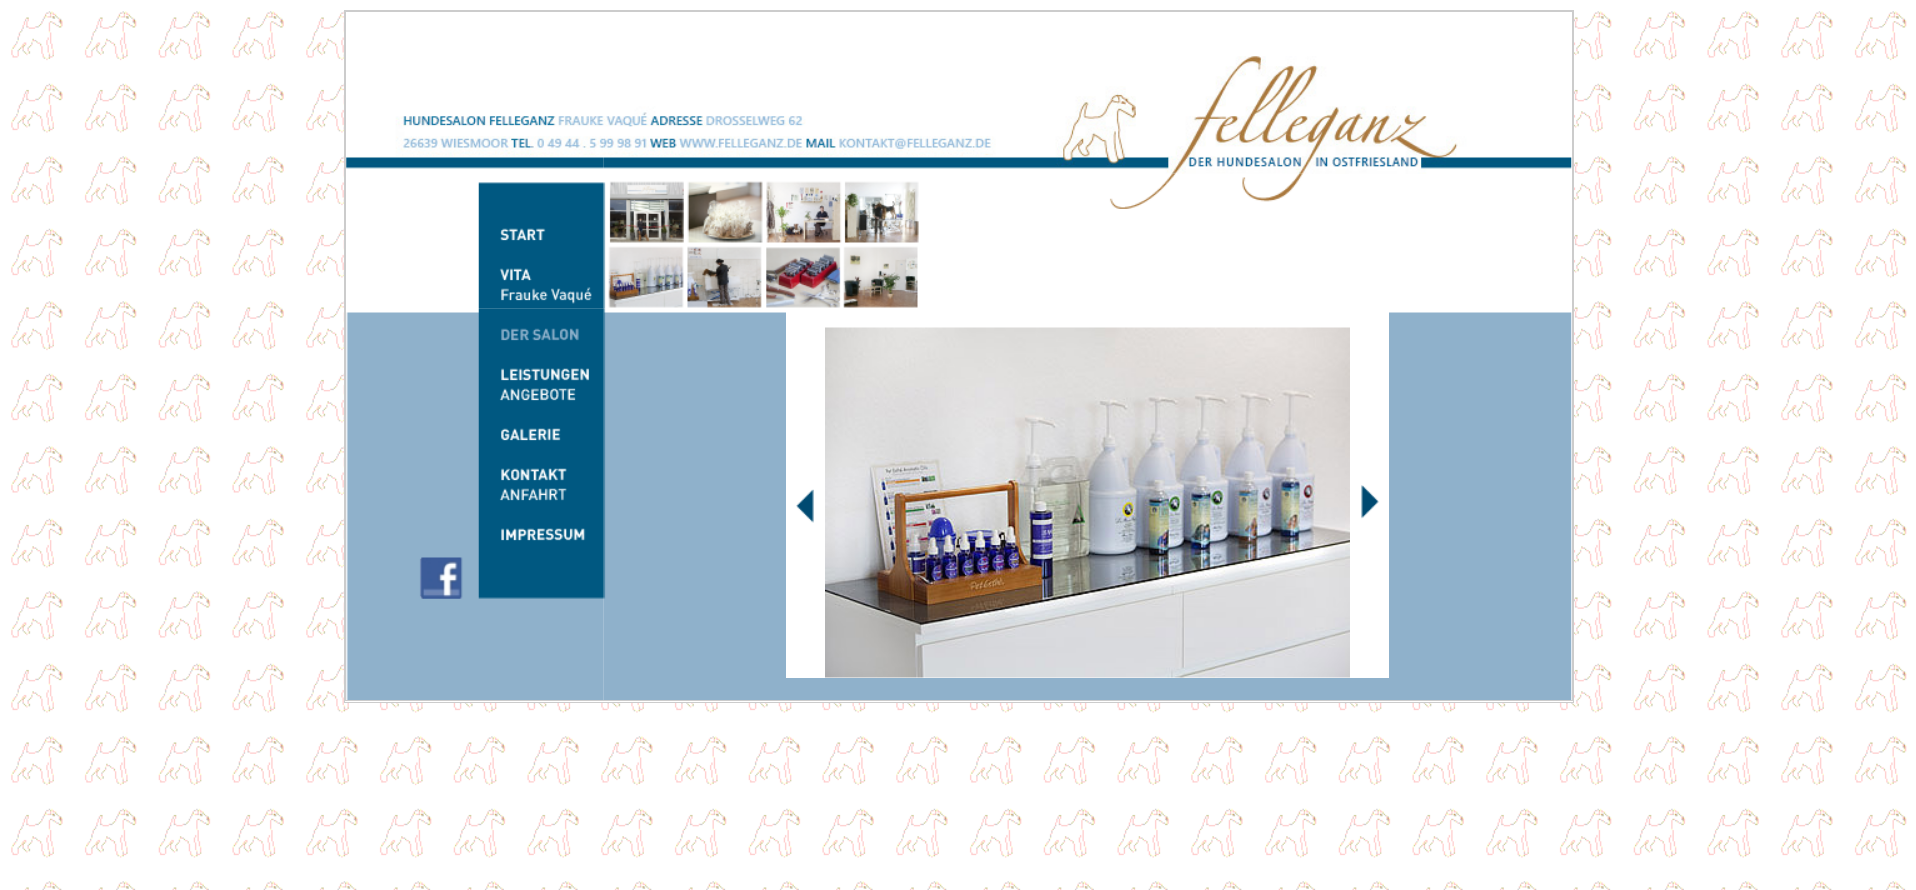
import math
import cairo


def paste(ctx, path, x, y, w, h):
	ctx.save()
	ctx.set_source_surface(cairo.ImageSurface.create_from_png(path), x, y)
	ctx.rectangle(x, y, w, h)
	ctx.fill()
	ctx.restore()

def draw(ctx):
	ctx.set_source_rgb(1, 1, 1)
	ctx.paint()
	paste(ctx, 'media/1.png', 11, 11, 1896, 879)
	ctx.set_source_rgb(1, 1, 1)
	ctx.rectangle(345, 12, 1228, 690)
	ctx.fill()
	ctx.rectangle(344.5, 10.5, 1229, 692)
	ctx.set_source_rgb(0.8, 0.8, 0.8)
	ctx.set_line_width(1)
	ctx.stroke()
	ctx.rectangle(345.5, 11.5, 1227, 689)
	ctx.stroke()
	paste(ctx, 'media/2.png', 346, 116, 129, 53)
	paste(ctx, 'media/3.png', 475, 116, 129, 53)
	paste(ctx, 'media/4.png', 603, 56, 969, 118)
	paste(ctx, 'media/9.png', 603, 308, 969, 392)
	paste(ctx, 'media/5.png', 478, 182, 126, 127)
	paste(ctx, 'media/6.png', 603, 173, 701, 136)
	paste(ctx, 'media/7.png', 346, 312, 129, 388)
	paste(ctx, 'media/8.png', 475, 308, 129, 392)
	ctx.set_source_rgb(1, 1, 1)
	ctx.rectangle(786, 312, 603, 366)
	ctx.fill()
	paste(ctx, 'media/10.png', 796, 489, 18, 34)
	paste(ctx, 'media/11.png', 825, 327, 525, 351)
	paste(ctx, 'media/12.png', 1361, 485, 18, 34)


surface = cairo.ImageSurface(cairo.FORMAT_RGB24, 1916, 890)
ctx = cairo.Context(surface)
options = cairo.FontOptions()
options.set_hint_metrics(cairo.HINT_METRICS_OFF)
options.set_hint_style(cairo.HINT_STYLE_NONE)
ctx.set_font_options(options)
ctx.set_miter_limit(4)
draw(ctx)
surface.write_to_png('image.png')
